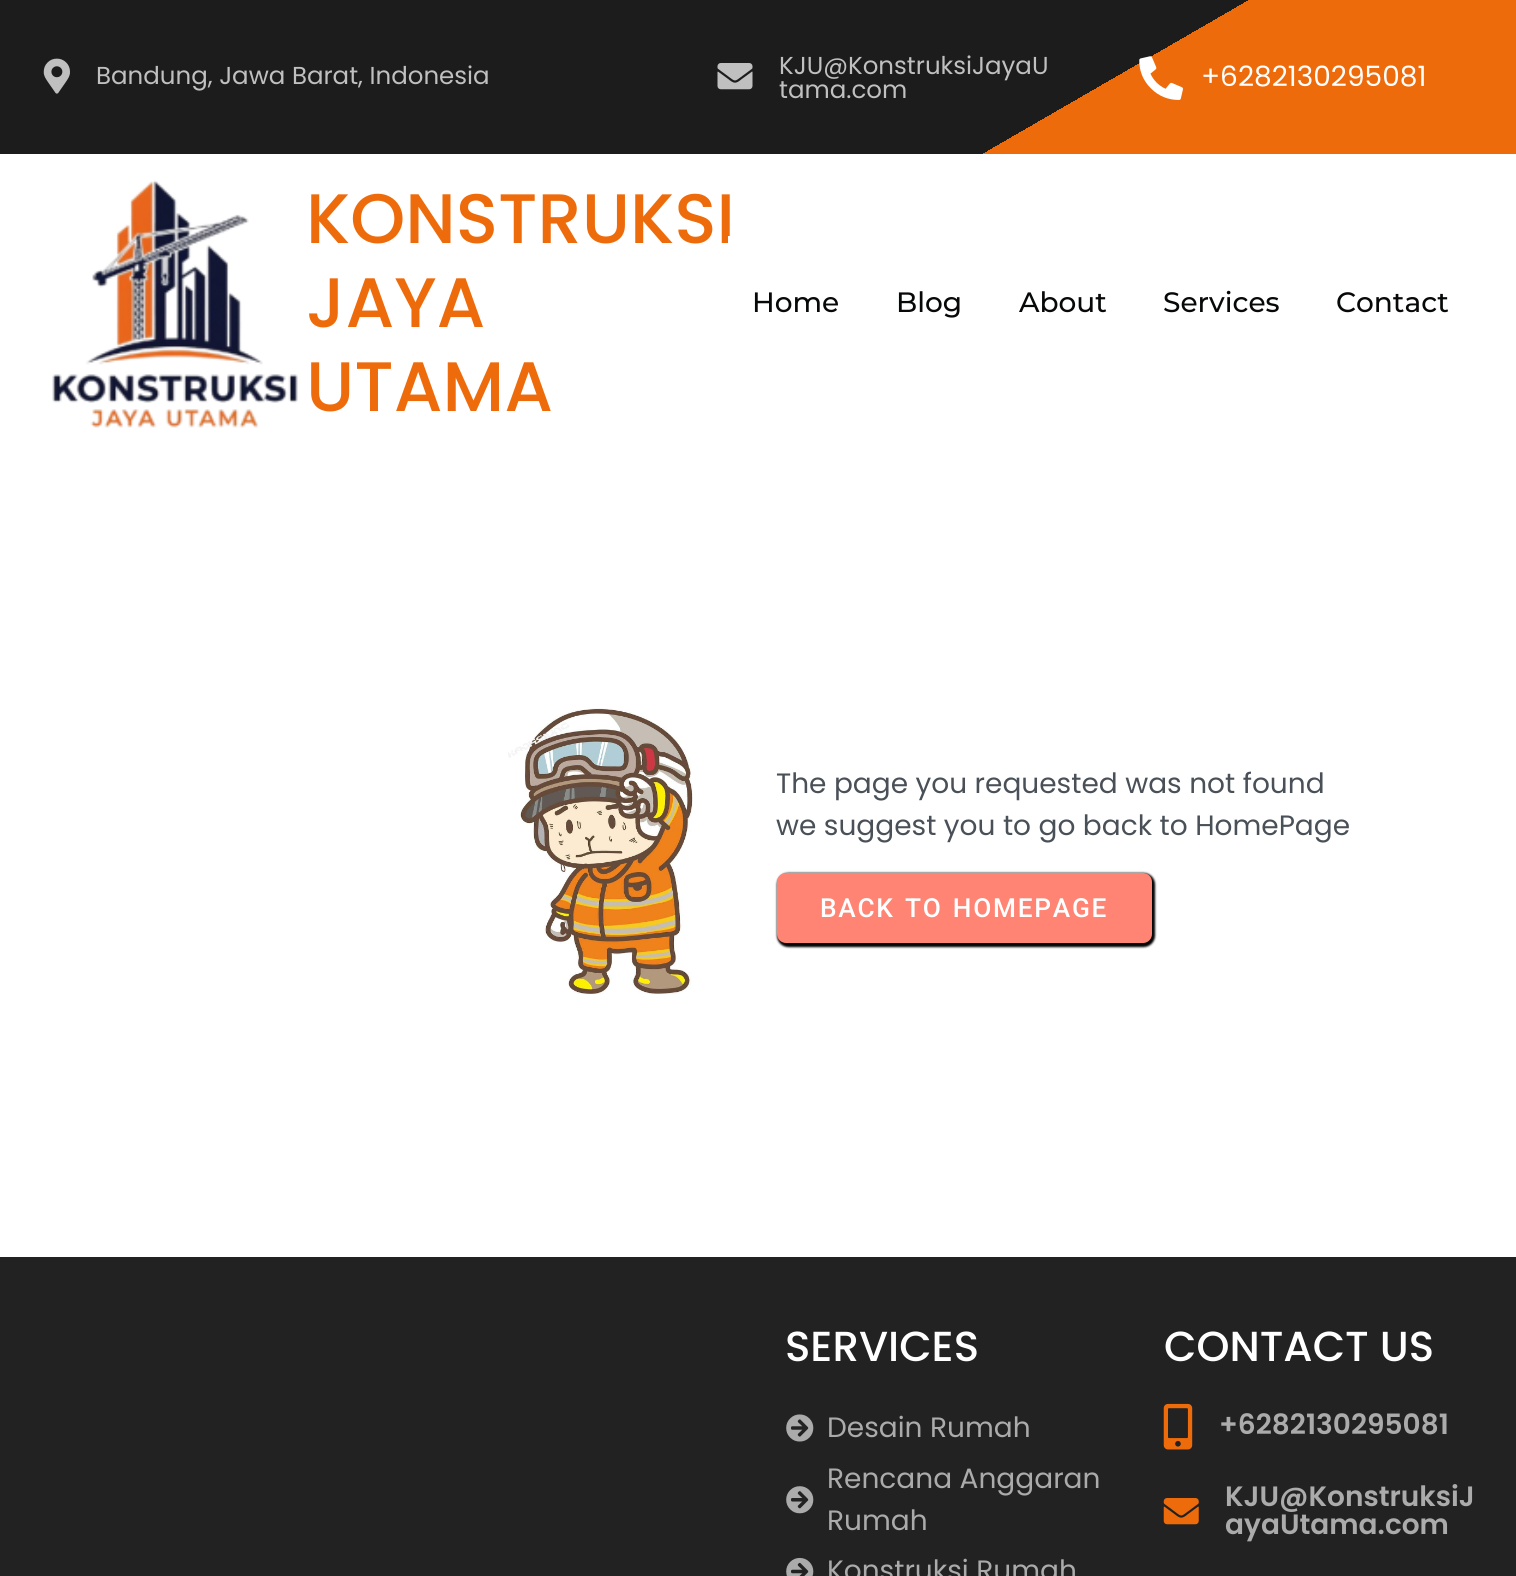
import math
import cairo


def write_spaced(ctx, x, y, s, letter, word):
	ctx.move_to(x, y)
	for ch in s:
		ctx.show_text(ch)
		ctx.rel_move_to(letter + word * (ch == ' '), 0)

def round_path(ctx, x, y, w, h, r):
	ctx.new_sub_path()
	for i, (u, v) in enumerate([(x + w - r, y + h - r), (x + r, y + h - r), (x + r, y + r), (x + w - r, y + r)]):
		ctx.arc(u, v, r, i * math.pi / 2, (i + 1) * math.pi / 2)
	ctx.close_path()

def blur_box(ctx, x, y, w, h, r, blur, alpha):
	ctx.push_group_with_content(cairo.CONTENT_ALPHA)
	ctx.set_operator(cairo.OPERATOR_SOURCE)
	for i in range(15, -16, -2):
		e = blur * i / 6
		if min(w, h) + 2 * e > 0:
			ctx.set_source_rgba(0, 0, 0, alpha * math.erfc((i - 1) / 8.5) / 2)
			round_path(ctx, x - e, y - e, w + 2 * e, h + 2 * e, max(0, min(r + e + blur * .6, min(w, h) / 2 + e)))
			ctx.fill()
	ctx.mask(ctx.pop_group())

def paste(ctx, path, x, y, w, h):
	ctx.save()
	ctx.set_source_surface(cairo.ImageSurface.create_from_png(path), x, y)
	ctx.rectangle(x, y, w, h)
	ctx.fill()
	ctx.restore()

def draw(ctx):
	ctx.set_source_rgb(1, 1, 1)
	ctx.paint()
	gradient = cairo.LinearGradient(536, -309, 982, 463)
	gradient.add_color_stop_rgba(0.7, 0.11, 0.11, 0.11, 1)
	gradient.add_color_stop_rgba(0.7, 0.933, 0.42, 0.043, 1)
	ctx.set_source(gradient)
	ctx.rectangle(0, 0, 1516, 154)
	ctx.fill()
	paste(ctx, 'media/1.png', 43, 58, 27, 36)
	ctx.select_font_face('Poppins')
	ctx.set_font_size(24.5)
	ctx.set_source_rgb(0.753, 0.753, 0.753)
	ctx.move_to(96, 84)
	ctx.show_text('Bandung, Jawa Barat, Indonesia')
	paste(ctx, 'media/2.png', 717, 63, 36, 27)
	ctx.move_to(779, 74)
	ctx.show_text('KJU@KonstruksiJayaU')
	ctx.move_to(779, 98)
	ctx.show_text('tama.com')
	paste(ctx, 'media/3.png', 1139, 56, 44, 44)
	ctx.set_font_size(28)
	ctx.set_source_rgb(1, 1, 1)
	ctx.move_to(1201, 86)
	ctx.show_text('+6282130295081')
	paste(ctx, 'media/4.png', 52, 180, 246, 248)
	ctx.select_font_face('Poppins Medium')
	ctx.set_font_size(70)
	ctx.set_source_rgb(0.933, 0.42, 0.043)
	for x, y, s in [
		(306, 243, 'KONSTRUKSI'),
		(306, 327, 'JAYA'),
		(306, 411, 'UTAMA'),
	]:
		ctx.move_to(x, y)
		ctx.show_text(s)
	ctx.set_source_rgb(1, 1, 1)
	ctx.rectangle(728, 236, 3, 7)
	ctx.fill()
	ctx.select_font_face('Montserrat Medium')
	ctx.set_font_size(28)
	ctx.set_source_rgb(0.031, 0.035, 0.035)
	for x, y, s in [
		(752, 312, 'Home'),
		(896, 312, 'Blog'),
		(1019, 312, 'About'),
		(1163, 312, 'Services'),
		(1336, 312, 'Contact'),
	]:
		ctx.move_to(x, y)
		ctx.show_text(s)
	paste(ctx, 'media/5.png', 508, 708, 185, 286)
	ctx.select_font_face('Poppins')
	ctx.set_source_rgb(0.286, 0.314, 0.341)
	ctx.move_to(776, 793)
	ctx.show_text('The page you requested was not found')
	ctx.move_to(776, 835)
	ctx.show_text('we suggest you to go back to HomePage')
	ctx.set_source_rgb(0, 0, 0)
	blur_box(ctx, 777, 873, 378, 74, 11, 1, 1)
	ctx.set_source_rgb(1, 0.518, 0.455)
	round_path(ctx, 777, 873, 375, 70, 9)
	ctx.fill()
	ctx.select_font_face('Roboto Medium')
	ctx.set_font_size(26.25)
	ctx.set_source_rgb(1, 1, 1)
	write_spaced(ctx, 820, 917, 'BACK TO HOMEPAGE', 1.75, 2)
	ctx.set_source_rgb(0.133, 0.133, 0.133)
	ctx.rectangle(0, 1257, 1516, 319)
	ctx.fill()
	ctx.select_font_face('Poppins Medium')
	ctx.set_font_size(42)
	ctx.set_source_rgb(1, 1, 1)
	ctx.move_to(785, 1361)
	ctx.show_text('SERVICES')
	paste(ctx, 'media/6.png', 786, 1414, 28, 28)
	ctx.select_font_face('Poppins')
	ctx.set_font_size(28)
	ctx.set_source_rgb(0.671, 0.671, 0.671)
	ctx.move_to(827, 1437)
	ctx.show_text('Desain Rumah')
	paste(ctx, 'media/7.png', 786, 1486, 28, 28)
	ctx.move_to(827, 1488)
	ctx.show_text('Rencana Anggaran')
	ctx.move_to(827, 1530)
	ctx.show_text('Rumah')
	paste(ctx, 'media/8.png', 786, 1557, 28, 19)
	ctx.move_to(827, 1580)
	ctx.show_text('Konstruksi Rumah')
	ctx.select_font_face('Poppins Medium')
	ctx.set_font_size(42)
	ctx.set_source_rgb(1, 1, 1)
	ctx.move_to(1164, 1361)
	ctx.show_text('CONTACT US')
	paste(ctx, 'media/9.png', 1163, 1403, 30, 47)
	ctx.select_font_face('Poppins SemiBold')
	ctx.set_font_size(28)
	ctx.set_source_rgb(0.671, 0.671, 0.671)
	ctx.move_to(1219, 1434)
	ctx.show_text('+6282130295081')
	paste(ctx, 'media/10.png', 1163, 1498, 36, 27)
	ctx.move_to(1225, 1506)
	ctx.show_text('KJU@KonstruksiJ')
	ctx.move_to(1225, 1534)
	ctx.show_text('ayaUtama.com')


surface = cairo.ImageSurface(cairo.FORMAT_RGB24, 1516, 1576)
ctx = cairo.Context(surface)
options = cairo.FontOptions()
options.set_hint_metrics(cairo.HINT_METRICS_OFF)
options.set_hint_style(cairo.HINT_STYLE_NONE)
ctx.set_font_options(options)
ctx.set_miter_limit(4)
draw(ctx)
surface.write_to_png('image.png')
